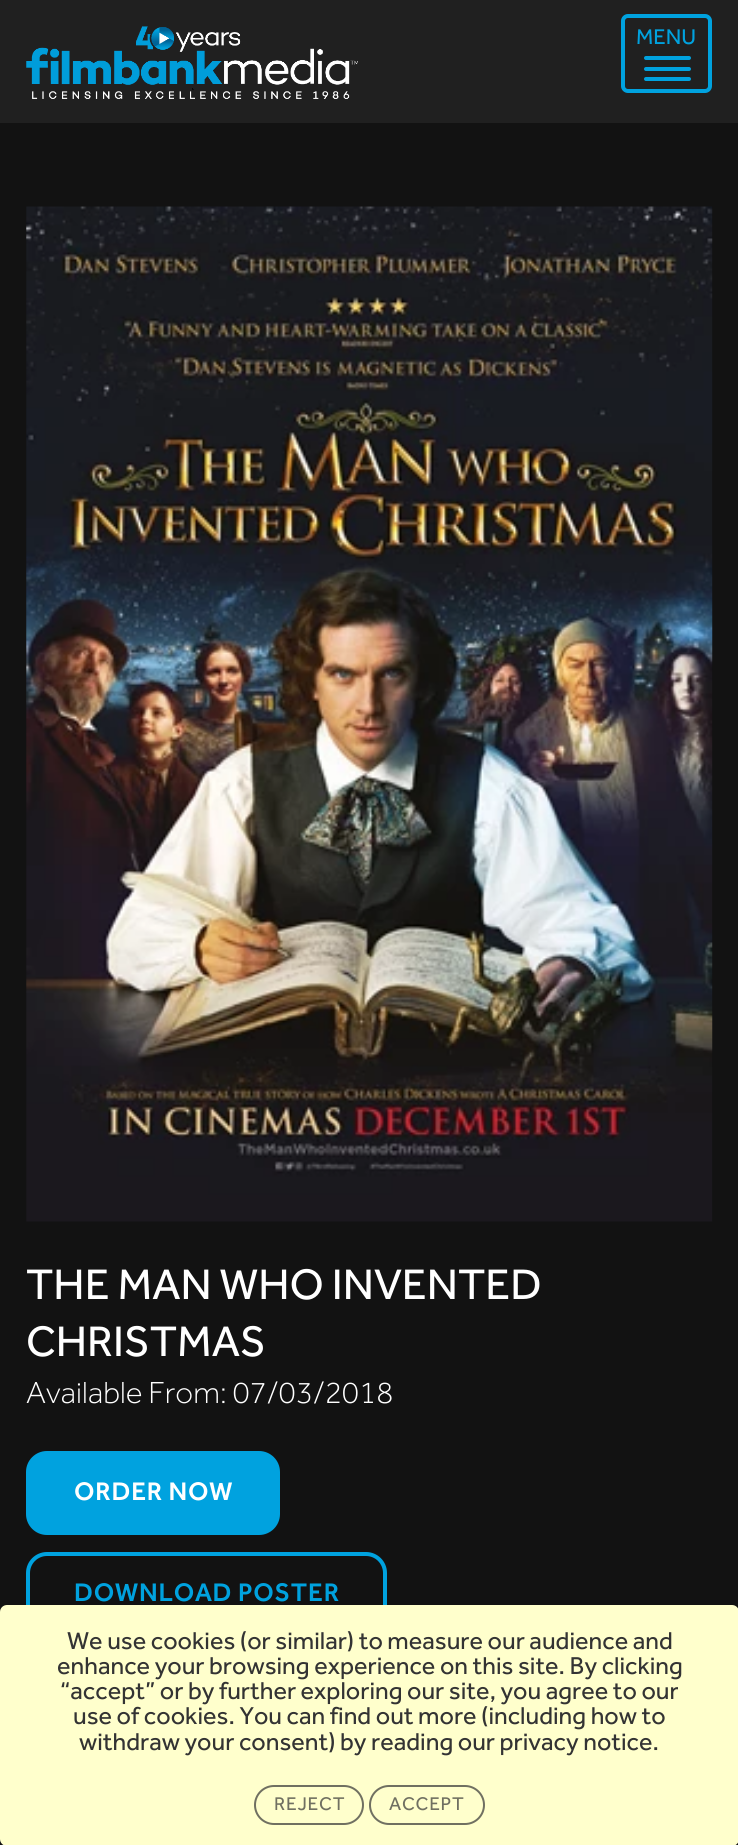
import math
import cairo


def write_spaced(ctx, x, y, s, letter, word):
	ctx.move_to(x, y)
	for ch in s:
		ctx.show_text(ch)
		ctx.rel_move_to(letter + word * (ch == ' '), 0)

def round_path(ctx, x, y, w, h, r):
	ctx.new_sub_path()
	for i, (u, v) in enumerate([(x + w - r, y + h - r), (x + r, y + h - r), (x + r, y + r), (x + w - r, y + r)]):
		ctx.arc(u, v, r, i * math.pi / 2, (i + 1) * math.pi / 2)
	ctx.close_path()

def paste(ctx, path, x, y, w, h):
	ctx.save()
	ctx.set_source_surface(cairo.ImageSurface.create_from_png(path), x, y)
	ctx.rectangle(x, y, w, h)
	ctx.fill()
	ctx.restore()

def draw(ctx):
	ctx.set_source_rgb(0.071, 0.071, 0.071)
	ctx.paint()
	ctx.set_source_rgb(0.125, 0.125, 0.125)
	ctx.rectangle(0, 0, 738, 123)
	ctx.fill()
	paste(ctx, 'media/1.png', 26, 26, 332, 73)
	round_path(ctx, 623, 16, 87, 75, 5)
	ctx.set_source_rgb(0, 0.635, 0.875)
	ctx.set_line_width(4)
	ctx.stroke()
	ctx.select_font_face('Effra')
	ctx.set_font_size(22)
	ctx.move_to(636, 44)
	ctx.show_text('MENU')
	round_path(ctx, 644, 56, 47, 4, 2)
	ctx.fill()
	round_path(ctx, 644, 67, 47, 4, 2)
	ctx.fill()
	round_path(ctx, 644, 77, 47, 4, 2)
	ctx.fill()
	paste(ctx, 'media/2.png', 26, 206, 687, 1016)
	ctx.set_font_size(44.1)
	ctx.set_source_rgb(1, 1, 1)
	ctx.move_to(26, 1299)
	ctx.show_text('THE MAN WHO INVENTED')
	ctx.move_to(26, 1356)
	ctx.show_text('CHRISTMAS')
	ctx.select_font_face('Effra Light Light')
	ctx.set_font_size(31.5)
	ctx.move_to(26, 1403)
	ctx.show_text('Available From: 07/03/2018')
	ctx.set_source_rgb(0, 0.635, 0.875)
	round_path(ctx, 26, 1451, 254, 84, 21)
	ctx.fill()
	ctx.select_font_face('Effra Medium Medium')
	ctx.set_font_size(26.25)
	ctx.set_source_rgb(1, 1, 1)
	write_spaced(ctx, 74, 1500, 'ORDER NOW', 0.75, 0)
	round_path(ctx, 28, 1554, 357, 79, 19)
	ctx.set_source_rgb(0, 0.635, 0.875)
	ctx.stroke()
	write_spaced(ctx, 74, 1601, 'DOWNLOAD POSTER', 0.75, 0)
	ctx.set_source_rgb(1, 1, 0.8)
	round_path(ctx, 0, 1605, 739, 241, 7)
	ctx.fill()
	ctx.select_font_face('Effra')
	ctx.set_font_size(25.2)
	ctx.set_source_rgb(0.2, 0.2, 0.2)
	for x, y, s in [
		(67, 1649, 'We use cookies (or similar) to measure our audience and'),
		(57, 1674, 'enhance your browsing experience on this site. By clicking'),
		(60, 1699, '“accept” or by further exploring our site, you agree to our'),
		(73, 1724, 'use of cookies. You can find out more (including how to'),
		(79, 1750, 'withdraw your consent) by reading our privacy notice.'),
	]:
		ctx.move_to(x, y)
		ctx.show_text(s)
	round_path(ctx, 255, 1786, 108, 38, 19)
	ctx.set_source_rgb(0.439, 0.439, 0.38)
	ctx.set_line_width(2)
	ctx.stroke()
	ctx.set_font_size(19)
	write_spaced(ctx, 274, 1810, 'REJECT', 0.75, 0)
	round_path(ctx, 370, 1786, 114, 38, 19)
	ctx.stroke()
	write_spaced(ctx, 389, 1810, 'ACCEPT', 0.75, 0)


surface = cairo.ImageSurface(cairo.FORMAT_RGB24, 738, 1845)
ctx = cairo.Context(surface)
options = cairo.FontOptions()
options.set_hint_metrics(cairo.HINT_METRICS_OFF)
options.set_hint_style(cairo.HINT_STYLE_NONE)
ctx.set_font_options(options)
ctx.set_miter_limit(4)
draw(ctx)
surface.write_to_png('image.png')
